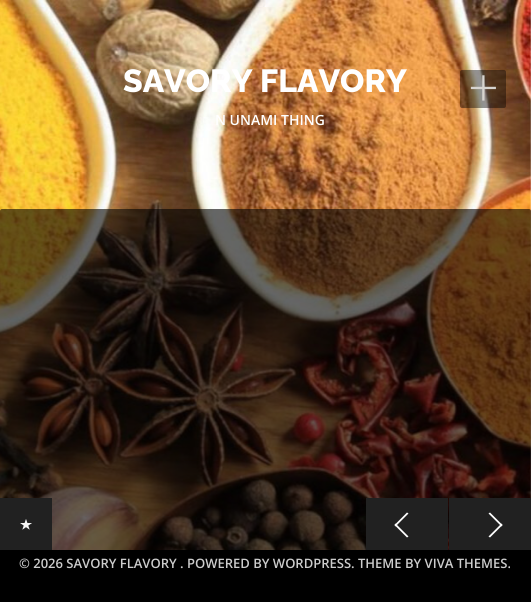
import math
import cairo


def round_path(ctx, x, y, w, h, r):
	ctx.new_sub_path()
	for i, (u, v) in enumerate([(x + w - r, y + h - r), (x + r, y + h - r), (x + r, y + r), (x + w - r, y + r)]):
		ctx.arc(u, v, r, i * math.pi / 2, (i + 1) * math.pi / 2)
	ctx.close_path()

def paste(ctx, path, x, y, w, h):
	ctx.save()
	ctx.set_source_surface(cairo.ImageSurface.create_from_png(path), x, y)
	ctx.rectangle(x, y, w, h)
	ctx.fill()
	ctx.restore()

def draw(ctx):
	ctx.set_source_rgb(1, 1, 1)
	ctx.paint()
	paste(ctx, 'media/1.png', 0, 0, 531, 550)
	ctx.select_font_face('Raleway ExtraBold')
	ctx.set_font_size(32)
	ctx.set_source_rgb(1, 1, 1)
	ctx.move_to(123, 92)
	ctx.show_text('SAVORY FLAVORY')
	ctx.select_font_face('Open Sans SemiBold')
	ctx.set_font_size(14)
	ctx.move_to(215, 125)
	ctx.show_text('N UNAMI THING')
	ctx.set_source_rgba(0, 0, 0, 0.42)
	round_path(ctx, 460, 70, 46, 38, 2)
	ctx.fill()
	ctx.select_font_face('Open Sans Light')
	ctx.set_font_size(54)
	ctx.set_source_rgb(0.843, 0.831, 0.816)
	ctx.move_to(468, 107)
	ctx.show_text('+')
	ctx.set_source_rgba(0, 0, 0, 0.6)
	round_path(ctx, 0, 209, 531, 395, 2)
	ctx.fill()
	ctx.set_source_rgb(0.129, 0.129, 0.129)
	ctx.rectangle(366, 498, 82, 52)
	ctx.fill()
	ctx.set_source_rgb(1, 1, 1)
	ctx.new_path()
	ctx.move_to(395.5, 523.5)
	ctx.line_to(408.5, 536.5)
	ctx.line_to(407, 537.5)
	ctx.line_to(394.5, 525)
	ctx.close_path()
	ctx.fill()
	ctx.new_path()
	ctx.move_to(407, 512.5)
	ctx.line_to(408.5, 513.5)
	ctx.line_to(395.5, 526.5)
	ctx.line_to(394.5, 525)
	ctx.close_path()
	ctx.fill()
	ctx.set_source_rgb(0.129, 0.129, 0.129)
	ctx.rectangle(449, 498, 82, 52)
	ctx.fill()
	ctx.set_source_rgb(1, 1, 1)
	ctx.new_path()
	ctx.move_to(488.5, 513.5)
	ctx.line_to(490, 512.5)
	ctx.line_to(502.5, 525)
	ctx.line_to(501.5, 526.5)
	ctx.close_path()
	ctx.fill()
	ctx.new_path()
	ctx.move_to(488.5, 536.5)
	ctx.line_to(501.5, 523.5)
	ctx.line_to(502.5, 525)
	ctx.line_to(490, 537.5)
	ctx.close_path()
	ctx.fill()
	ctx.set_source_rgb(0.129, 0.129, 0.129)
	ctx.rectangle(0, 498, 52, 52)
	ctx.fill()
	paste(ctx, 'media/2.png', 20, 519, 12, 11)
	ctx.set_source_rgb(0, 0, 0)
	ctx.rectangle(0, 550, 531, 52)
	ctx.fill()
	ctx.select_font_face('Open Sans SemiBold')
	ctx.set_font_size(13)
	ctx.set_source_rgb(0.8, 0.8, 0.8)
	ctx.move_to(19, 568)
	ctx.show_text('© 2026 SAVORY FLAVORY . POWERED BY WORDPRESS. THEME BY VIVA THEMES.')


surface = cairo.ImageSurface(cairo.FORMAT_RGB24, 531, 602)
ctx = cairo.Context(surface)
options = cairo.FontOptions()
options.set_hint_metrics(cairo.HINT_METRICS_OFF)
options.set_hint_style(cairo.HINT_STYLE_NONE)
ctx.set_font_options(options)
ctx.set_miter_limit(4)
draw(ctx)
surface.write_to_png('image.png')
